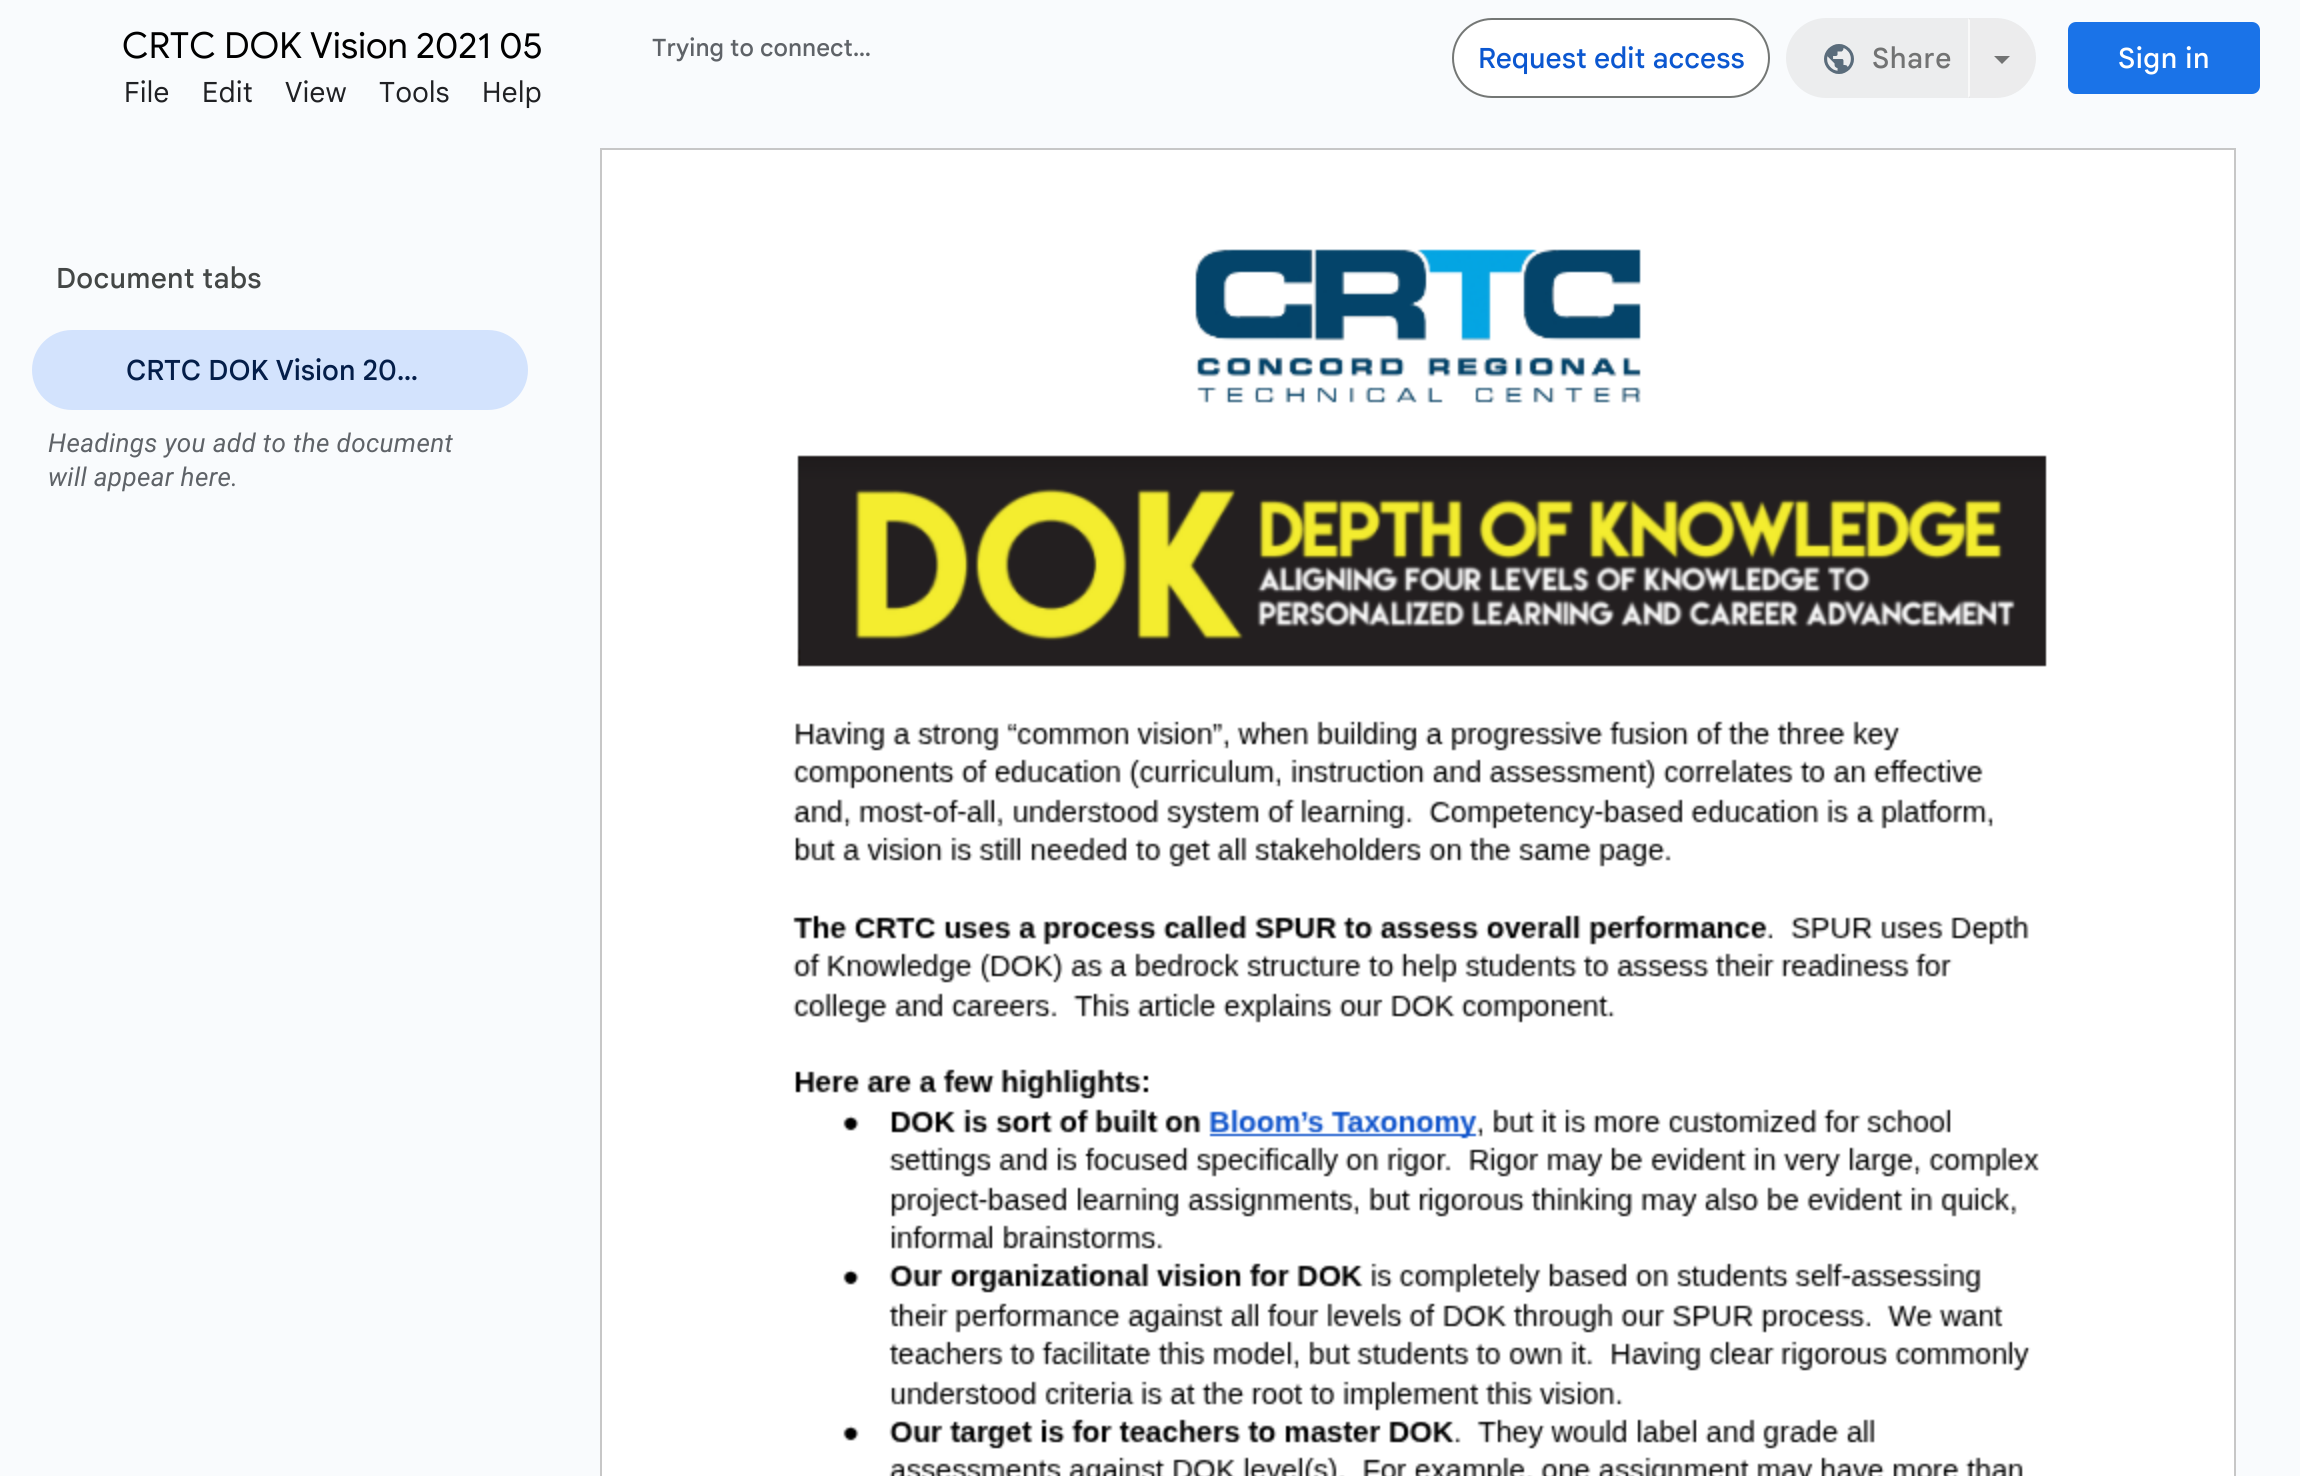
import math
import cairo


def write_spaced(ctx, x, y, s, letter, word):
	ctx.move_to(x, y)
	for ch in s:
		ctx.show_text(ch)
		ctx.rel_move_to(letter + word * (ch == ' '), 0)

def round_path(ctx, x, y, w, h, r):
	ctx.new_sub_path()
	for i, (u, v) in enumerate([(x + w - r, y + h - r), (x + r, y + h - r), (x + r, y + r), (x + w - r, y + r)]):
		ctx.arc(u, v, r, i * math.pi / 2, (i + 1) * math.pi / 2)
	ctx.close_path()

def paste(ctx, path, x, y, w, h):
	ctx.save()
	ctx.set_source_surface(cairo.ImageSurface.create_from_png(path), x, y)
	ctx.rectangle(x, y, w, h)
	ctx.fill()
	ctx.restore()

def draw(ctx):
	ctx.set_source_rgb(0.976, 0.984, 0.992)
	ctx.paint()
	ctx.select_font_face('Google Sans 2')
	ctx.set_font_size(36)
	ctx.set_source_rgb(0, 0, 0)
	ctx.move_to(122, 58)
	ctx.show_text('CRTC DOK Vision 2021 05')
	ctx.select_font_face('Google Sans Medium')
	ctx.set_font_size(24)
	ctx.set_source_rgb(0.373, 0.388, 0.408)
	ctx.move_to(652, 56)
	ctx.show_text('Trying to connect…')
	ctx.set_source_rgb(1, 1, 1)
	round_path(ctx, 1453, 19, 316, 78, 39)
	ctx.fill_preserve()
	ctx.set_source_rgb(0.455, 0.467, 0.459)
	ctx.stroke()
	ctx.set_font_size(28)
	ctx.set_source_rgb(0.043, 0.341, 0.816)
	ctx.move_to(1478, 68)
	ctx.show_text('Request edit access')
	ctx.set_source_rgb(0.925, 0.929, 0.933)
	ctx.new_path()
	ctx.move_to(1826, 18)
	ctx.line_to(1970, 18)
	ctx.line_to(1970, 98)
	ctx.line_to(1826, 98)
	ctx.curve_to(1804, 98, 1786, 80, 1786, 58)
	ctx.curve_to(1786, 36, 1804, 18, 1826, 18)
	ctx.close_path()
	ctx.fill()
	paste(ctx, 'media/1.png', 1824, 44, 30, 30)
	ctx.set_source_rgb(0.447, 0.451, 0.451)
	write_spaced(ctx, 1872, 68, 'Share', 0.5, 0)
	ctx.set_source_rgba(0.894, 0.894, 0.894, 0.62)
	ctx.new_path()
	ctx.move_to(1968, 18)
	ctx.line_to(1996, 18)
	ctx.curve_to(2018, 18, 2036, 36, 2036, 58)
	ctx.curve_to(2036, 80, 2018, 98, 1996, 98)
	ctx.line_to(1968, 98)
	ctx.close_path()
	ctx.fill()
	ctx.set_source_rgb(0.973, 0.973, 0.976)
	ctx.new_path()
	ctx.move_to(1970, 20)
	ctx.line_to(1968, 18)
	ctx.line_to(1968, 98)
	ctx.line_to(1970, 96)
	ctx.close_path()
	ctx.fill()
	ctx.set_source_rgb(0.447, 0.451, 0.451)
	ctx.new_path()
	ctx.move_to(1994, 56)
	ctx.line_to(2010, 56)
	ctx.line_to(2002, 64)
	ctx.close_path()
	ctx.fill()
	ctx.set_source_rgb(0.102, 0.451, 0.91)
	round_path(ctx, 2068, 22, 192, 72, 8)
	ctx.fill()
	ctx.set_source_rgb(1, 1, 1)
	write_spaced(ctx, 2118, 68, 'Sign in', 0.5, 0)
	ctx.select_font_face('Google Sans')
	ctx.set_source_rgb(0.125, 0.129, 0.141)
	for x, y, s in [
		(124, 102, 'File'),
		(202, 102, 'Edit'),
		(285, 102, 'View'),
		(379, 102, 'Tools'),
		(482, 102, 'Help'),
	]:
		write_spaced(ctx, x, y, s, 0.4, 0)
	ctx.select_font_face('Google Sans Medium')
	ctx.set_source_rgb(0.267, 0.278, 0.275)
	write_spaced(ctx, 56, 288, 'Document tabs', 0.25, 0)
	ctx.set_source_rgb(0.827, 0.89, 0.992)
	round_path(ctx, 32, 330, 496, 80, 40)
	ctx.fill()
	ctx.set_source_rgb(0.016, 0.118, 0.286)
	ctx.move_to(126, 380)
	ctx.show_text('CRTC DOK Vision 20…')
	ctx.select_font_face('Roboto', cairo.FONT_SLANT_ITALIC)
	ctx.set_font_size(26)
	ctx.set_source_rgb(0.373, 0.388, 0.408)
	write_spaced(ctx, 48, 452, 'Headings you add to the document', 0.4, 0)
	write_spaced(ctx, 48, 486, 'will appear here.', 0.4, 0)
	ctx.rectangle(601, 149, 1634, 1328)
	ctx.set_source_rgb(0.78, 0.78, 0.78)
	ctx.stroke()
	paste(ctx, 'media/2.png', 602, 150, 1632, 1326)


surface = cairo.ImageSurface(cairo.FORMAT_RGB24, 2300, 1476)
ctx = cairo.Context(surface)
options = cairo.FontOptions()
options.set_hint_metrics(cairo.HINT_METRICS_OFF)
options.set_hint_style(cairo.HINT_STYLE_NONE)
ctx.set_font_options(options)
ctx.set_miter_limit(4)
draw(ctx)
surface.write_to_png('image.png')
